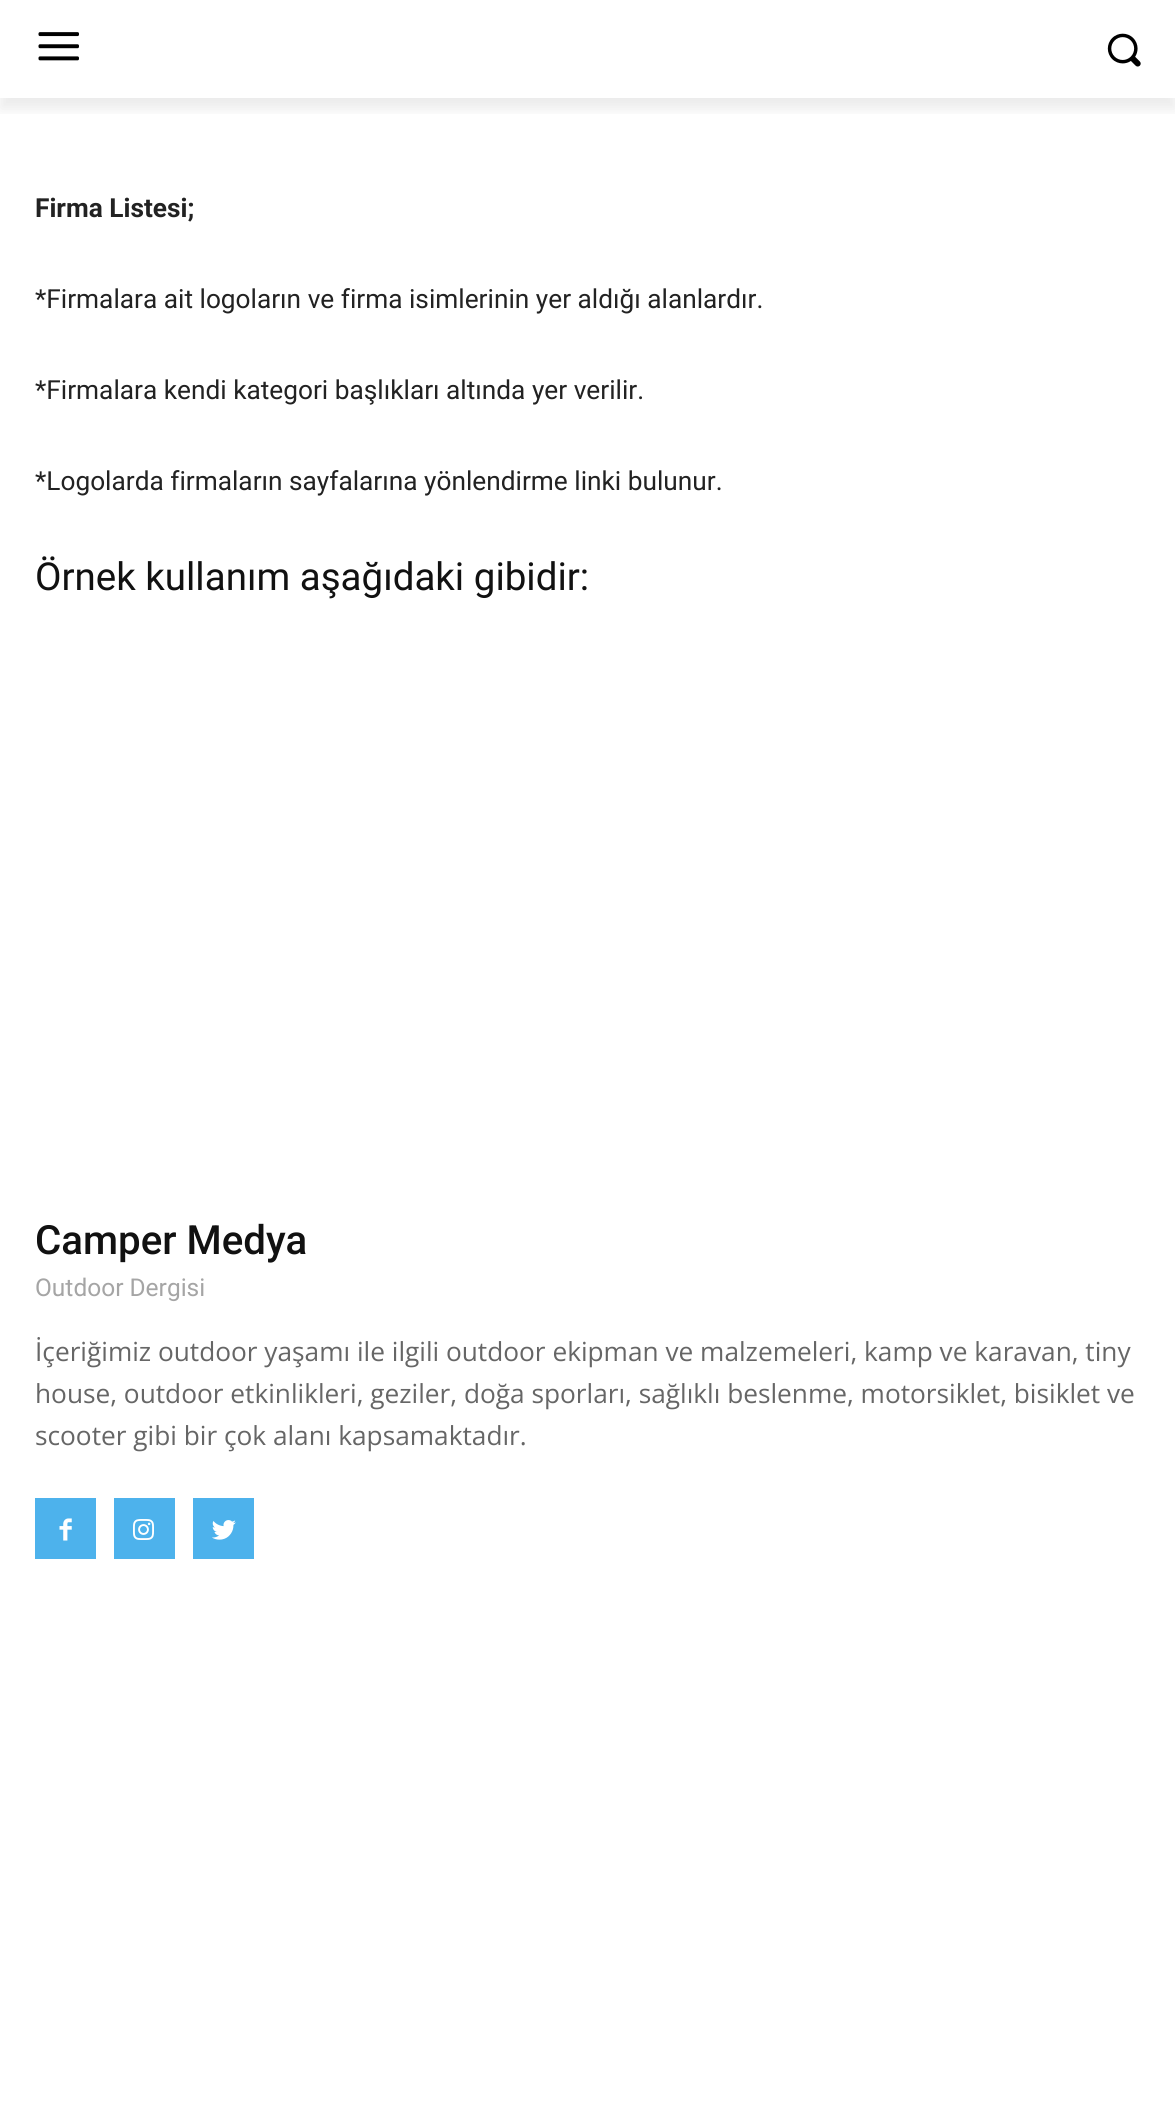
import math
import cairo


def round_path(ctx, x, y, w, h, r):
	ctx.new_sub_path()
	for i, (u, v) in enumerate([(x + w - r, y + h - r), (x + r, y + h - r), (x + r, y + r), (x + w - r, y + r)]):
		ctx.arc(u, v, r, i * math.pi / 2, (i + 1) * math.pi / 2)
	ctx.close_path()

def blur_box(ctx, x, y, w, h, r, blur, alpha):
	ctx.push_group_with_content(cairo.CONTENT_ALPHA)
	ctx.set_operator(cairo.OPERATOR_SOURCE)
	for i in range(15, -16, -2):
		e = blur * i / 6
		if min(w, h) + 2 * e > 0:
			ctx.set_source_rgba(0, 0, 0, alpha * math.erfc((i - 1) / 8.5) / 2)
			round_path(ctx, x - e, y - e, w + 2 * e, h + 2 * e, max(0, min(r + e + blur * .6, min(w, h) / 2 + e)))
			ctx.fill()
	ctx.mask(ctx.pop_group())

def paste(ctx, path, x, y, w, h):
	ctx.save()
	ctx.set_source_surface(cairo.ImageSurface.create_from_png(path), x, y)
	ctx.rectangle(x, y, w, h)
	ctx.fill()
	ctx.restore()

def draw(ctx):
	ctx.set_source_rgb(1, 1, 1)
	ctx.paint()
	paste(ctx, 'media/1.png', 38, 32, 41, 29)
	paste(ctx, 'media/2.png', 1107, 33, 34, 34)
	ctx.save()
	ctx.rectangle(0, 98, 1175, 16)
	ctx.clip()
	ctx.set_source_rgb(0, 0, 0)
	blur_box(ctx, 0, 11, 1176, 98, 0, 7, 0.08)
	ctx.restore()
	ctx.select_font_face('Roboto', cairo.FONT_SLANT_NORMAL, cairo.FONT_WEIGHT_BOLD)
	ctx.set_font_size(26.25)
	ctx.set_source_rgb(0.133, 0.133, 0.133)
	ctx.move_to(35, 217)
	ctx.show_text('Firma Listesi;')
	ctx.select_font_face('Roboto')
	for x, y, s in [
		(35, 308, '*Firmalara ait logoların ve firma isimlerinin yer aldığı alanlardır.'),
		(35, 399, '*Firmalara kendi kategori başlıkları altında yer verilir.'),
		(35, 490, '*Logolarda firmaların sayfalarına yönlendirme linki bulunur.'),
	]:
		ctx.move_to(x, y)
		ctx.show_text(s)
	ctx.set_font_size(38.5)
	ctx.set_source_rgb(0.067, 0.067, 0.067)
	ctx.move_to(35, 590)
	ctx.show_text('Örnek kullanım aşağıdaki gibidir:')
	ctx.select_font_face('Roboto Medium')
	ctx.set_font_size(40.25)
	ctx.move_to(35, 1254)
	ctx.show_text('Camper Medya')
	ctx.select_font_face('Roboto')
	ctx.set_font_size(24.5)
	ctx.set_source_rgb(0.647, 0.647, 0.647)
	ctx.move_to(35, 1296)
	ctx.show_text('Outdoor Dergisi')
	ctx.select_font_face('Open Sans')
	ctx.set_font_size(26.25)
	ctx.set_source_rgb(0.4, 0.4, 0.4)
	for x, y, s in [
		(35, 1361, 'İçeriğimiz outdoor yaşamı ile ilgili outdoor ekipman ve malzemeleri, kamp ve karavan, tiny'),
		(35, 1403, 'house, outdoor etkinlikleri, geziler, doğa sporları, sağlıklı beslenme, motorsiklet, bisiklet ve'),
		(35, 1445, 'scooter gibi bir çok alanı kapsamaktadır.'),
	]:
		ctx.move_to(x, y)
		ctx.show_text(s)
	ctx.set_source_rgb(0.302, 0.698, 0.925)
	ctx.rectangle(35, 1498, 61, 61)
	ctx.fill()
	paste(ctx, 'media/3.png', 59, 1518, 13, 23)
	ctx.rectangle(114, 1498, 61, 61)
	ctx.fill()
	paste(ctx, 'media/4.png', 133, 1519, 21, 21)
	ctx.rectangle(193, 1498, 61, 61)
	ctx.fill()
	paste(ctx, 'media/5.png', 212, 1520, 24, 20)


surface = cairo.ImageSurface(cairo.FORMAT_RGB24, 1175, 2126)
ctx = cairo.Context(surface)
options = cairo.FontOptions()
options.set_hint_metrics(cairo.HINT_METRICS_OFF)
options.set_hint_style(cairo.HINT_STYLE_NONE)
ctx.set_font_options(options)
ctx.set_miter_limit(4)
draw(ctx)
surface.write_to_png('image.png')
